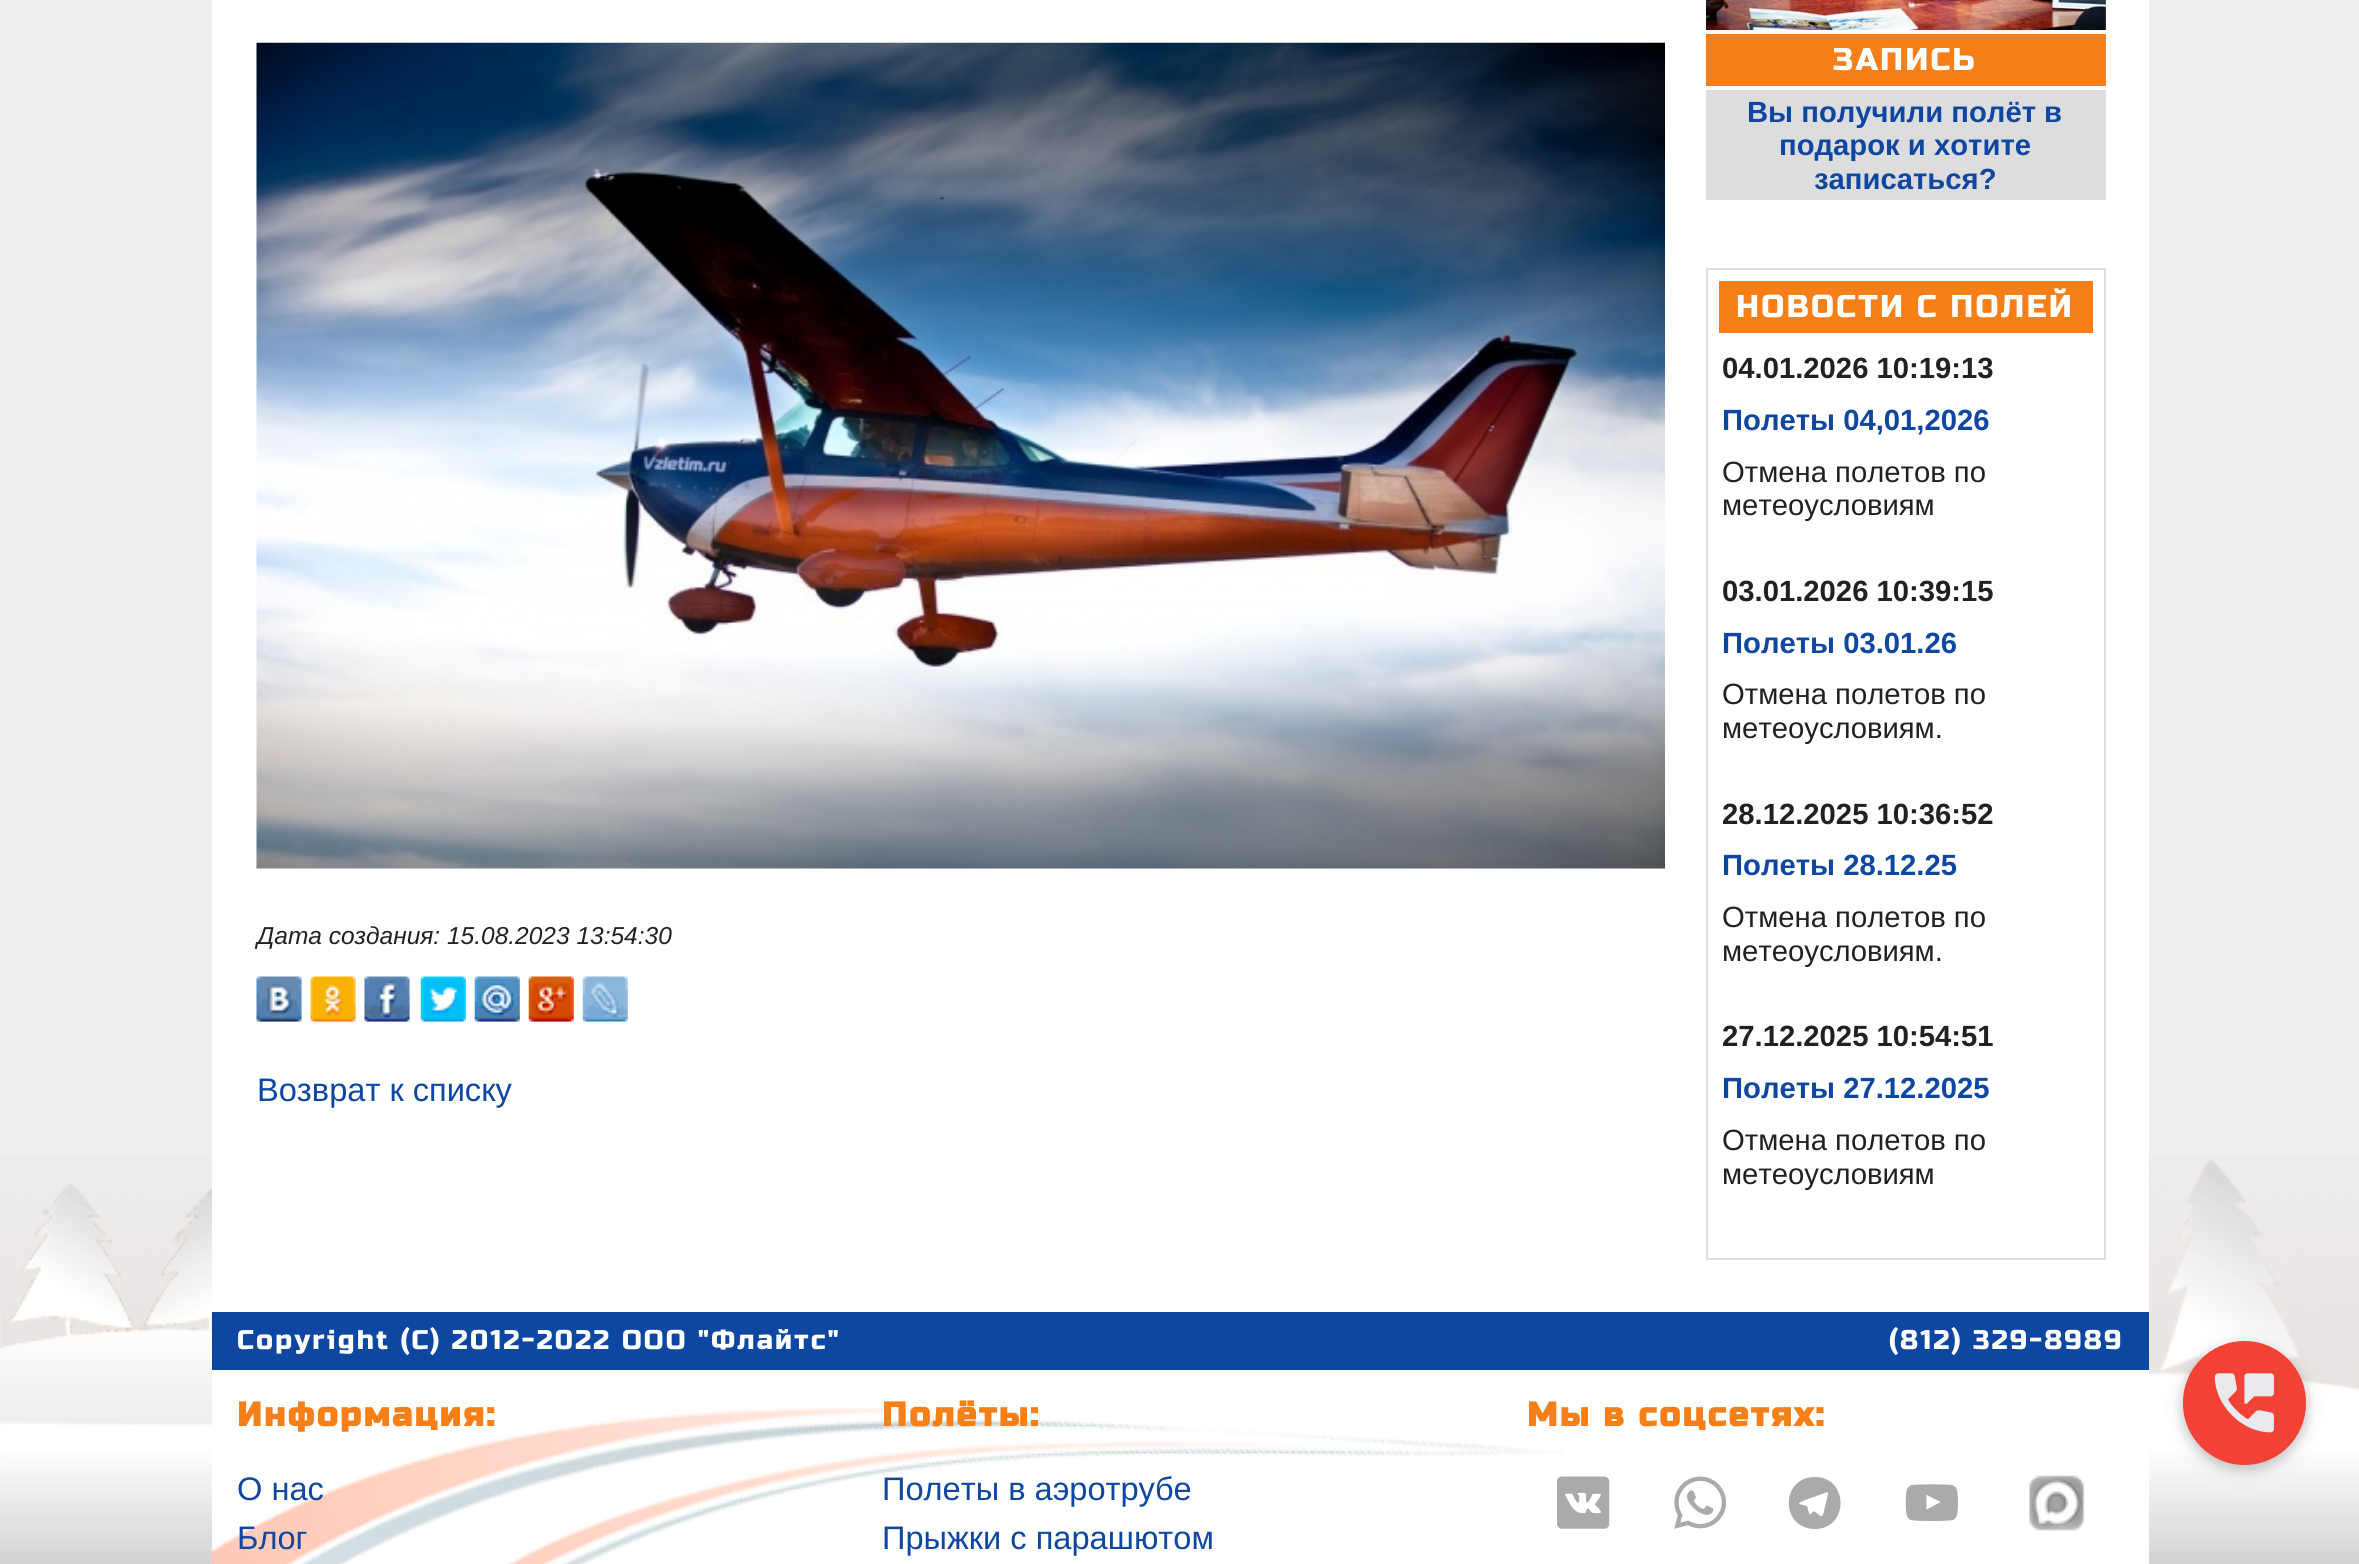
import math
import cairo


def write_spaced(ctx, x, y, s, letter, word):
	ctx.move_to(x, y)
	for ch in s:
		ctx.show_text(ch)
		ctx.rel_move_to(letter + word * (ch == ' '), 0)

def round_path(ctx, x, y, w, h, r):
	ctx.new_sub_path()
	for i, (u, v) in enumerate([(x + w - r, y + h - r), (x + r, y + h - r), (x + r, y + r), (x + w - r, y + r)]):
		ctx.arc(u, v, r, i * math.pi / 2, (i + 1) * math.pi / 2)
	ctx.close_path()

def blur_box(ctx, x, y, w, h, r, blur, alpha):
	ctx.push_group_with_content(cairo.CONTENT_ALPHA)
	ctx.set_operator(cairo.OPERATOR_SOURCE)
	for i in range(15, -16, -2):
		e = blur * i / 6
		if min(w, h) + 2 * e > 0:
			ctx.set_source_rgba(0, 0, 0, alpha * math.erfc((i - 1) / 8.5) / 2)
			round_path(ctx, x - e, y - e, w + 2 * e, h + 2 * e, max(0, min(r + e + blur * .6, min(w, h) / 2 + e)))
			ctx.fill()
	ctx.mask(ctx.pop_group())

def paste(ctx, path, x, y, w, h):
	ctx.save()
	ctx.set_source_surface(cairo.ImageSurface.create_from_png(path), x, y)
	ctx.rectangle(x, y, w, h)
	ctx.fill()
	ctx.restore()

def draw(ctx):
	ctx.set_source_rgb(0.933, 0.933, 0.933)
	ctx.paint()
	paste(ctx, 'media/15.png', 0, 1156, 2359, 408)
	ctx.set_source_rgb(1, 1, 1)
	ctx.rectangle(212, 0, 1937, 1312)
	ctx.fill()
	paste(ctx, 'media/1.png', 256, 42, 1409, 827)
	ctx.select_font_face('Liberation Sans', cairo.FONT_SLANT_ITALIC)
	ctx.set_font_size(24.5)
	ctx.set_source_rgb(0.129, 0.129, 0.129)
	ctx.move_to(257, 944)
	ctx.show_text('Дата создания: 15.08.2023 13:54:30')
	ctx.set_source_rgb(0.937, 0.937, 0.937)
	ctx.rectangle(257, 977, 45, 45)
	ctx.fill()
	paste(ctx, 'media/2.png', 256, 976, 46, 46)
	ctx.rectangle(311, 977, 45, 45)
	ctx.fill()
	paste(ctx, 'media/3.png', 310, 976, 46, 46)
	ctx.rectangle(365, 977, 45, 45)
	ctx.fill()
	paste(ctx, 'media/4.png', 364, 976, 46, 46)
	ctx.rectangle(421, 977, 45, 45)
	ctx.fill()
	paste(ctx, 'media/5.png', 420, 976, 46, 46)
	ctx.rectangle(475, 977, 45, 45)
	ctx.fill()
	paste(ctx, 'media/6.png', 474, 976, 46, 46)
	ctx.rectangle(529, 977, 45, 45)
	ctx.fill()
	paste(ctx, 'media/7.png', 528, 976, 46, 46)
	ctx.rectangle(583, 977, 45, 45)
	ctx.fill()
	paste(ctx, 'media/8.png', 582, 976, 46, 46)
	ctx.select_font_face('Liberation Sans')
	ctx.set_font_size(32.6)
	ctx.set_source_rgb(0.051, 0.278, 0.631)
	ctx.move_to(257, 1101)
	ctx.show_text('Возврат к списку')
	paste(ctx, 'media/9.png', 1706, 0, 400, 30)
	ctx.set_source_rgb(0.961, 0.498, 0.09)
	ctx.rectangle(1706, 34, 400, 52)
	ctx.fill()
	ctx.select_font_face('Russo One')
	ctx.set_font_size(31.5)
	ctx.set_source_rgb(1, 1, 1)
	write_spaced(ctx, 1833, 70, 'ЗАПИСЬ', 2.25, 0)
	ctx.set_source_rgb(0.867, 0.867, 0.867)
	ctx.rectangle(1706, 90, 400, 110)
	ctx.fill()
	ctx.select_font_face('Liberation Sans', cairo.FONT_SLANT_NORMAL, cairo.FONT_WEIGHT_BOLD)
	ctx.set_font_size(29.25)
	ctx.set_source_rgb(0.051, 0.278, 0.631)
	for x, y, s in [
		(1747, 122, 'Вы получили полёт в'),
		(1779, 155, 'подарок и хотите'),
		(1814, 189, 'записаться?'),
	]:
		ctx.move_to(x, y)
		ctx.show_text(s)
	ctx.rectangle(1707, 269, 398, 990)
	ctx.set_source_rgb(0.867, 0.867, 0.867)
	ctx.stroke()
	ctx.set_source_rgb(0.961, 0.498, 0.09)
	ctx.rectangle(1719, 281, 374, 52)
	ctx.fill()
	ctx.select_font_face('Russo One')
	ctx.set_font_size(31.5)
	ctx.set_source_rgb(1, 1, 1)
	write_spaced(ctx, 1736, 317, 'НОВОСТИ С ПОЛЕЙ', 2.25, 0)
	ctx.select_font_face('Liberation Sans', cairo.FONT_SLANT_NORMAL, cairo.FONT_WEIGHT_BOLD)
	ctx.set_font_size(29.25)
	ctx.set_source_rgb(0.129, 0.129, 0.129)
	ctx.move_to(1722, 378)
	ctx.show_text('04.01.2026 10:19:13')
	ctx.set_source_rgb(0.051, 0.278, 0.631)
	ctx.move_to(1722, 430)
	ctx.show_text('Полеты 04,01,2026')
	ctx.select_font_face('Liberation Sans')
	ctx.set_source_rgb(0.129, 0.129, 0.129)
	ctx.move_to(1722, 482)
	ctx.show_text('Отмена полетов по')
	ctx.move_to(1722, 515)
	ctx.show_text('метеоусловиям')
	ctx.select_font_face('Liberation Sans', cairo.FONT_SLANT_NORMAL, cairo.FONT_WEIGHT_BOLD)
	ctx.move_to(1722, 601)
	ctx.show_text('03.01.2026 10:39:15')
	ctx.set_source_rgb(0.051, 0.278, 0.631)
	ctx.move_to(1722, 653)
	ctx.show_text('Полеты 03.01.26')
	ctx.select_font_face('Liberation Sans')
	ctx.set_source_rgb(0.129, 0.129, 0.129)
	ctx.move_to(1722, 704)
	ctx.show_text('Отмена полетов по')
	ctx.move_to(1722, 738)
	ctx.show_text('метеоусловиям.')
	ctx.select_font_face('Liberation Sans', cairo.FONT_SLANT_NORMAL, cairo.FONT_WEIGHT_BOLD)
	ctx.move_to(1722, 824)
	ctx.show_text('28.12.2025 10:36:52')
	ctx.set_source_rgb(0.051, 0.278, 0.631)
	ctx.move_to(1722, 875)
	ctx.show_text('Полеты 28.12.25')
	ctx.select_font_face('Liberation Sans')
	ctx.set_source_rgb(0.129, 0.129, 0.129)
	ctx.move_to(1722, 927)
	ctx.show_text('Отмена полетов по')
	ctx.move_to(1722, 961)
	ctx.show_text('метеоусловиям.')
	ctx.select_font_face('Liberation Sans', cairo.FONT_SLANT_NORMAL, cairo.FONT_WEIGHT_BOLD)
	ctx.move_to(1722, 1046)
	ctx.show_text('27.12.2025 10:54:51')
	ctx.set_source_rgb(0.051, 0.278, 0.631)
	ctx.move_to(1722, 1098)
	ctx.show_text('Полеты 27.12.2025')
	ctx.select_font_face('Liberation Sans')
	ctx.set_source_rgb(0.129, 0.129, 0.129)
	ctx.move_to(1722, 1150)
	ctx.show_text('Отмена полетов по')
	ctx.move_to(1722, 1184)
	ctx.show_text('метеоусловиям')
	ctx.set_source_rgb(0.051, 0.278, 0.631)
	ctx.rectangle(212, 1312, 1937, 58)
	ctx.fill()
	ctx.select_font_face('Russo One')
	ctx.set_font_size(27)
	ctx.set_source_rgb(1, 1, 1)
	write_spaced(ctx, 237, 1349, 'Copyright (C) 2012-2022 ООО "Флайтс"', 2.25, 0)
	write_spaced(ctx, 1889, 1349, '(812) 329-8989', 2.25, 0)
	ctx.rectangle(212, 1370, 1937, 194)
	ctx.fill()
	paste(ctx, 'media/10.png', 211, 1407, 1352, 157)
	ctx.select_font_face('Russo One', cairo.FONT_SLANT_NORMAL, cairo.FONT_WEIGHT_BOLD)
	ctx.set_font_size(33.75)
	ctx.set_source_rgb(0.961, 0.498, 0.09)
	write_spaced(ctx, 237, 1426, 'Информация:', 2.25, 0)
	ctx.select_font_face('Liberation Sans')
	ctx.set_font_size(32.6)
	ctx.set_source_rgb(0.051, 0.278, 0.631)
	ctx.move_to(237, 1500)
	ctx.show_text('О нас')
	ctx.move_to(237, 1549)
	ctx.show_text('Блог')
	ctx.select_font_face('Russo One', cairo.FONT_SLANT_NORMAL, cairo.FONT_WEIGHT_BOLD)
	ctx.set_font_size(33.75)
	ctx.set_source_rgb(0.961, 0.498, 0.09)
	write_spaced(ctx, 882, 1426, 'Полёты:', 2.25, 0)
	ctx.select_font_face('Liberation Sans')
	ctx.set_font_size(32.6)
	ctx.set_source_rgb(0.051, 0.278, 0.631)
	ctx.move_to(882, 1500)
	ctx.show_text('Полеты в аэротрубе')
	ctx.move_to(882, 1549)
	ctx.show_text('Прыжки с парашютом')
	ctx.select_font_face('Russo One', cairo.FONT_SLANT_NORMAL, cairo.FONT_WEIGHT_BOLD)
	ctx.set_font_size(33.75)
	ctx.set_source_rgb(0.961, 0.498, 0.09)
	write_spaced(ctx, 1527, 1426, 'Мы в соцсетях:', 2.25, 0)
	paste(ctx, 'media/11.png', 1557, 1476, 53, 53)
	paste(ctx, 'media/12.png', 1674, 1476, 53, 53)
	ctx.set_source_rgb(0.667, 0.667, 0.667)
	ctx.new_path()
	ctx.move_to(1815, 1477)
	ctx.curve_to(1780, 1477, 1780, 1529, 1815, 1529)
	ctx.curve_to(1849, 1529, 1849, 1477, 1815, 1477)
	ctx.close_path()
	ctx.move_to(1828, 1494)
	ctx.line_to(1824, 1511)
	ctx.curve_to(1822, 1520, 1821, 1516, 1814, 1511)
	ctx.curve_to(1808, 1517, 1810, 1515, 1807, 1506)
	ctx.line_to(1799, 1504)
	ctx.curve_to(1799, 1502, 1802, 1502, 1805, 1500)
	ctx.line_to(1822, 1494)
	ctx.curve_to(1823, 1494, 1829, 1490, 1828, 1494)
	ctx.close_path()
	ctx.fill()
	paste(ctx, 'media/13.png', 1905, 1484, 53, 37)
	paste(ctx, 'media/14.png', 2029, 1475, 56, 56)
	ctx.set_source_rgb(0, 0, 0)
	blur_box(ctx, 2183, 1346, 123, 123, 61.5, 11, 0.12)
	blur_box(ctx, 2183, 1346, 123, 123, 61.5, 5.5, 0.16)
	ctx.set_source_rgb(0.957, 0.263, 0.212)
	round_path(ctx, 2183, 1341, 123, 124, 61.5)
	ctx.fill()
	paste(ctx, 'media/16.png', 2214, 1373, 60, 60)


surface = cairo.ImageSurface(cairo.FORMAT_RGB24, 2359, 1564)
ctx = cairo.Context(surface)
options = cairo.FontOptions()
options.set_hint_metrics(cairo.HINT_METRICS_OFF)
options.set_hint_style(cairo.HINT_STYLE_NONE)
ctx.set_font_options(options)
ctx.set_miter_limit(4)
draw(ctx)
surface.write_to_png('image.png')
